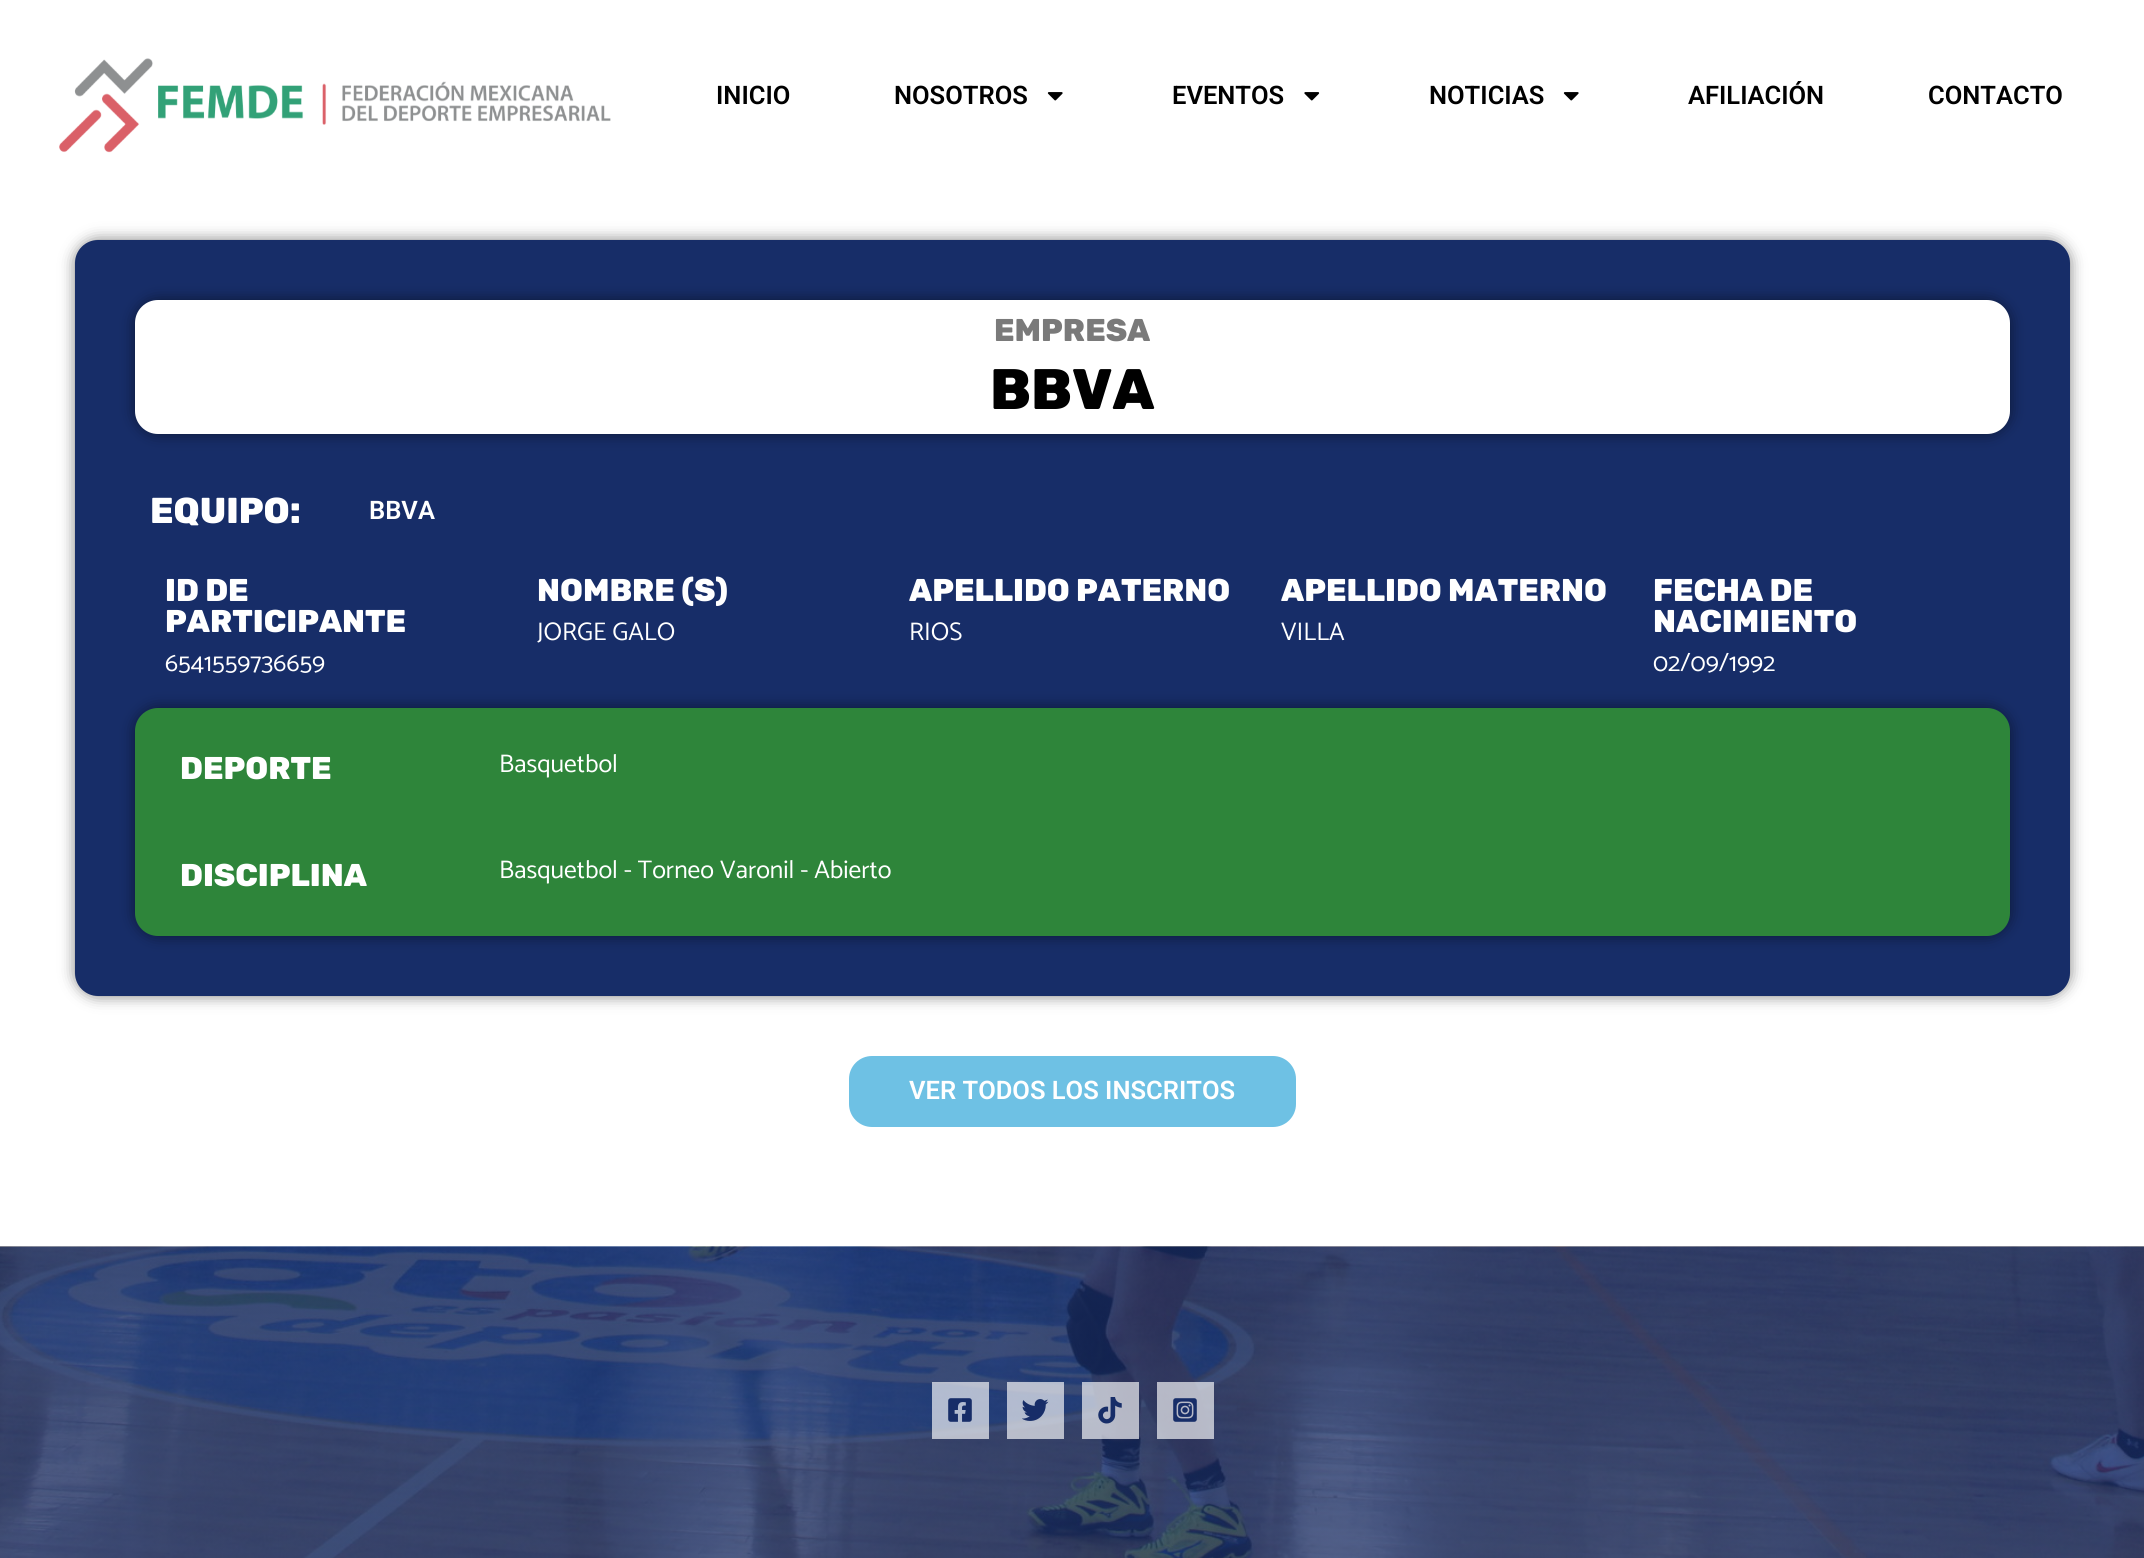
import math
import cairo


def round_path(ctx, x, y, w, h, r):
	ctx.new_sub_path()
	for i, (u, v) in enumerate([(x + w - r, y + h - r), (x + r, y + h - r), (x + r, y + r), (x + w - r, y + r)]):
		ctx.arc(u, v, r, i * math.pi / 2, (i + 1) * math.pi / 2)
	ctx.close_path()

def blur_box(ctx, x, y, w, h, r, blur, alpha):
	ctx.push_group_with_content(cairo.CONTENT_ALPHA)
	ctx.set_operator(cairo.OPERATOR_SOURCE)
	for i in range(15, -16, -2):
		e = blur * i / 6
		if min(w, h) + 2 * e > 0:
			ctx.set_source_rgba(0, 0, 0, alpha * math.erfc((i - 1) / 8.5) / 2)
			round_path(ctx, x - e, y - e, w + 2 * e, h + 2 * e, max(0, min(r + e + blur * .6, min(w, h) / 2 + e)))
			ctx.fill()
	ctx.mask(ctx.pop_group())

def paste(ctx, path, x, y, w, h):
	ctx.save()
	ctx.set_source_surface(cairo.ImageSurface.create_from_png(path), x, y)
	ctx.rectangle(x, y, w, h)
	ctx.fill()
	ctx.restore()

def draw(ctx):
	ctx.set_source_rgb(1, 1, 1)
	ctx.paint()
	paste(ctx, 'media/1.png', 59, 58, 552, 95)
	ctx.select_font_face('Roboto SemiBold')
	ctx.set_font_size(25.5)
	ctx.set_source_rgb(0, 0, 0)
	ctx.move_to(716, 104)
	ctx.show_text('INICIO')
	ctx.move_to(894, 104)
	ctx.show_text('NOSOTROS')
	paste(ctx, 'media/2.png', 1047, 92, 16, 9)
	ctx.move_to(1172, 104)
	ctx.show_text('EVENTOS')
	paste(ctx, 'media/3.png', 1304, 92, 16, 9)
	ctx.move_to(1429, 104)
	ctx.show_text('NOTICIAS')
	paste(ctx, 'media/2.png', 1563, 92, 16, 9)
	ctx.move_to(1688, 104)
	ctx.show_text('AFILIACIÓN')
	ctx.move_to(1928, 104)
	ctx.show_text('CONTACTO')
	ctx.set_source_rgb(0, 0, 0)
	blur_box(ctx, 75, 240, 1995, 756, 23, 7.5, 0.5)
	ctx.set_source_rgb(0.09, 0.176, 0.408)
	round_path(ctx, 75, 240, 1995, 756, 23)
	ctx.fill()
	ctx.set_source_rgb(0, 0, 0)
	blur_box(ctx, 135, 300, 1875, 134, 23, 7.5, 0.5)
	ctx.set_source_rgb(1, 1, 1)
	round_path(ctx, 135, 300, 1875, 134, 23)
	ctx.fill()
	ctx.select_font_face('Rubik ExtraBold')
	ctx.set_font_size(31.5)
	ctx.set_source_rgb(0.478, 0.478, 0.478)
	ctx.move_to(994, 341)
	ctx.show_text('EMPRESA')
	ctx.set_font_size(57)
	ctx.set_source_rgb(0, 0, 0)
	ctx.move_to(990, 409)
	ctx.show_text('BBVA')
	ctx.set_font_size(36)
	ctx.set_source_rgb(1, 1, 1)
	ctx.move_to(150, 523)
	ctx.show_text('EQUIPO:')
	ctx.select_font_face('Roboto SemiBold')
	ctx.set_font_size(25.5)
	ctx.move_to(369, 519)
	ctx.show_text('BBVA')
	ctx.select_font_face('Rubik ExtraBold')
	ctx.set_font_size(31.5)
	ctx.move_to(165, 601)
	ctx.show_text('ID DE')
	ctx.move_to(165, 632)
	ctx.show_text('PARTICIPANTE')
	ctx.select_font_face('Catamaran Thin')
	ctx.set_font_size(25.5)
	ctx.move_to(165, 671)
	ctx.show_text('6541559736659')
	ctx.select_font_face('Rubik ExtraBold')
	ctx.set_font_size(31.5)
	ctx.move_to(537, 601)
	ctx.show_text('NOMBRE (S)')
	ctx.select_font_face('Catamaran Thin')
	ctx.set_font_size(25.5)
	ctx.move_to(537, 640)
	ctx.show_text('JORGE GALO')
	ctx.select_font_face('Rubik ExtraBold')
	ctx.set_font_size(31.5)
	ctx.move_to(909, 601)
	ctx.show_text('APELLIDO PATERNO')
	ctx.select_font_face('Catamaran Thin')
	ctx.set_font_size(25.5)
	ctx.move_to(909, 640)
	ctx.show_text('RIOS')
	ctx.select_font_face('Rubik ExtraBold')
	ctx.set_font_size(31.5)
	ctx.move_to(1281, 601)
	ctx.show_text('APELLIDO MATERNO')
	ctx.select_font_face('Catamaran Thin')
	ctx.set_font_size(25.5)
	ctx.move_to(1281, 640)
	ctx.show_text('VILLA')
	ctx.select_font_face('Rubik ExtraBold')
	ctx.set_font_size(31.5)
	ctx.move_to(1653, 601)
	ctx.show_text('FECHA DE')
	ctx.move_to(1653, 632)
	ctx.show_text('NACIMIENTO')
	ctx.select_font_face('Catamaran Thin')
	ctx.set_font_size(25.5)
	ctx.move_to(1653, 671)
	ctx.show_text('02/09/1992')
	ctx.set_source_rgb(0, 0, 0)
	blur_box(ctx, 135, 708, 1875, 228, 23, 7.5, 0.5)
	ctx.set_source_rgb(0.18, 0.522, 0.227)
	round_path(ctx, 135, 708, 1875, 228, 23)
	ctx.fill()
	ctx.select_font_face('Rubik ExtraBold')
	ctx.set_font_size(31.5)
	ctx.set_source_rgb(1, 1, 1)
	ctx.move_to(180, 779)
	ctx.show_text('DEPORTE')
	ctx.select_font_face('Catamaran Thin')
	ctx.set_font_size(25.5)
	ctx.move_to(499, 772)
	ctx.show_text('Basquetbol')
	ctx.select_font_face('Rubik ExtraBold')
	ctx.set_font_size(31.5)
	ctx.move_to(180, 886)
	ctx.show_text('DISCIPLINA')
	ctx.select_font_face('Catamaran Thin')
	ctx.set_font_size(25.5)
	ctx.move_to(499, 878)
	ctx.show_text('Basquetbol - Torneo Varonil - Abierto')
	ctx.set_source_rgb(0.431, 0.757, 0.894)
	round_path(ctx, 849, 1056, 447, 71, 23)
	ctx.fill()
	ctx.select_font_face('Roboto SemiBold')
	ctx.set_source_rgb(1, 1, 1)
	ctx.move_to(909, 1099)
	ctx.show_text('VER TODOS LOS INSCRITOS')
	paste(ctx, 'media/4.png', 0, 1246, 2144, 312)
	ctx.set_source_rgba(1, 1, 1, 0.65)
	ctx.rectangle(932, 1382, 57, 57)
	ctx.fill()
	paste(ctx, 'media/5.png', 948, 1398, 24, 24)
	ctx.rectangle(1007, 1382, 57, 57)
	ctx.fill()
	paste(ctx, 'media/6.png', 1022, 1399, 27, 22)
	ctx.rectangle(1082, 1382, 57, 57)
	ctx.fill()
	paste(ctx, 'media/7.png', 1098, 1397, 24, 27)
	ctx.rectangle(1157, 1382, 57, 57)
	ctx.fill()
	paste(ctx, 'media/8.png', 1173, 1398, 24, 24)


surface = cairo.ImageSurface(cairo.FORMAT_RGB24, 2144, 1558)
ctx = cairo.Context(surface)
options = cairo.FontOptions()
options.set_hint_metrics(cairo.HINT_METRICS_OFF)
options.set_hint_style(cairo.HINT_STYLE_NONE)
ctx.set_font_options(options)
ctx.set_miter_limit(4)
draw(ctx)
surface.write_to_png('image.png')
